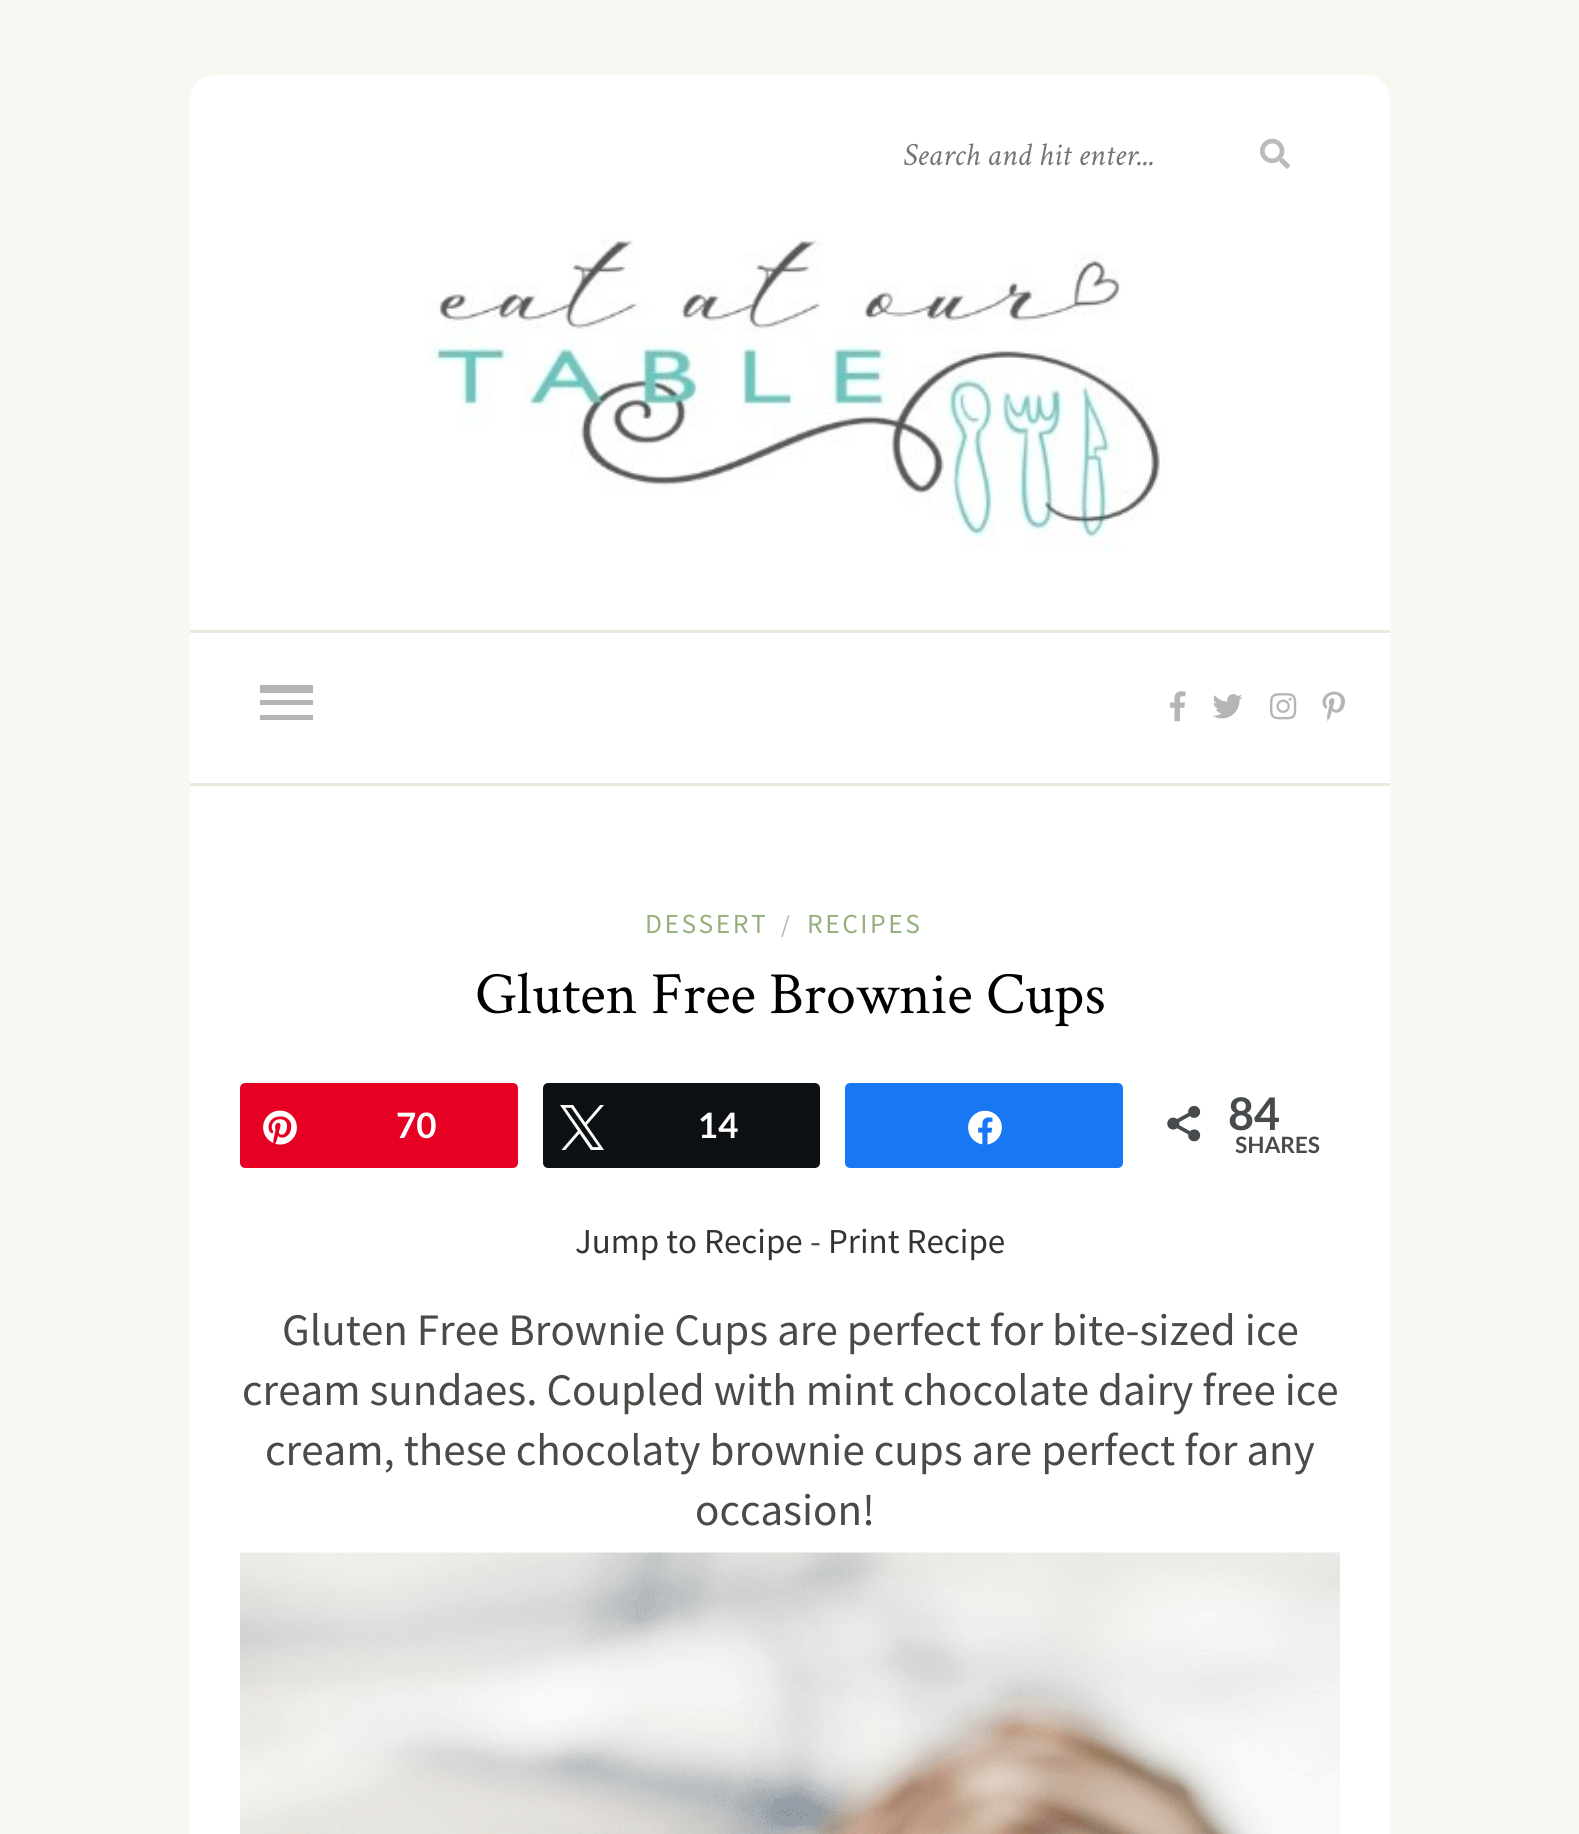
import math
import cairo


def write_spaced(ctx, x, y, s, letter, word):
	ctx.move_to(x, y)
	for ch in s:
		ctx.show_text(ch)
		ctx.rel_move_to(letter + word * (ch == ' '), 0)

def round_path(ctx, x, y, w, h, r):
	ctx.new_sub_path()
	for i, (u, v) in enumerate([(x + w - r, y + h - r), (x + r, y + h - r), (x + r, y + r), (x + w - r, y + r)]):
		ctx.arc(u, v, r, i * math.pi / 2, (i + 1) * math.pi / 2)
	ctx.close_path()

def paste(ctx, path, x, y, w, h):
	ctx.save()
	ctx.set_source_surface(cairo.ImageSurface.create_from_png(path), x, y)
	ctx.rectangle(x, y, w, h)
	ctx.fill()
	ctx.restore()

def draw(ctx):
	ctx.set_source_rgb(0.969, 0.969, 0.953)
	ctx.paint()
	ctx.set_source_rgb(1, 1, 1)
	round_path(ctx, 190, 75, 1200, 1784, 25)
	ctx.fill()
	ctx.select_font_face('Crimson Text', cairo.FONT_SLANT_ITALIC)
	ctx.set_font_size(32.5)
	ctx.set_source_rgb(0.459, 0.459, 0.459)
	ctx.move_to(903, 165)
	ctx.show_text('Search and hit enter...')
	paste(ctx, 'media/1.png', 1260, 138, 30, 31)
	paste(ctx, 'media/2.png', 429, 239, 738, 313)
	ctx.set_source_rgb(0.918, 0.91, 0.878)
	ctx.rectangle(190, 630, 1200, 3)
	ctx.rectangle(190, 783, 1200, 3)
	ctx.fill()
	ctx.set_source_rgb(0.71, 0.71, 0.71)
	ctx.rectangle(260, 685, 53, 8)
	ctx.rectangle(260, 700, 53, 5)
	ctx.rectangle(260, 715, 53, 5)
	ctx.fill()
	paste(ctx, 'media/3.png', 1170, 691, 16, 31)
	paste(ctx, 'media/4.png', 1212, 694, 31, 25)
	paste(ctx, 'media/5.png', 1270, 693, 27, 27)
	paste(ctx, 'media/6.png', 1322, 691, 23, 30)
	ctx.select_font_face('Source Sans Pro')
	ctx.set_font_size(27.5)
	ctx.set_source_rgb(0.584, 0.686, 0.494)
	write_spaced(ctx, 645, 933, 'DESSERT', 2.5, 0)
	ctx.set_font_size(25)
	ctx.set_source_rgb(0.71, 0.71, 0.71)
	ctx.move_to(781, 933)
	ctx.show_text('/')
	ctx.set_font_size(27.5)
	ctx.set_source_rgb(0.584, 0.686, 0.494)
	write_spaced(ctx, 807, 933, 'RECIPES', 2.5, 0)
	ctx.select_font_face('Crimson Text')
	ctx.set_font_size(60)
	ctx.set_source_rgb(0, 0, 0)
	ctx.move_to(475, 1013)
	ctx.show_text('Gluten Free Brownie Cups')
	ctx.set_source_rgb(0.902, 0, 0.137)
	round_path(ctx, 241.5, 1084.5, 275, 82, 3.5)
	ctx.fill_preserve()
	ctx.set_line_width(3)
	ctx.stroke()
	paste(ctx, 'media/7.png', 263, 1110, 34, 35)
	ctx.select_font_face('Lato', cairo.FONT_SLANT_NORMAL, cairo.FONT_WEIGHT_BOLD)
	ctx.set_font_size(35)
	ctx.set_source_rgb(1, 1, 1)
	ctx.move_to(396, 1138)
	ctx.show_text('70')
	ctx.set_source_rgb(0.051, 0.063, 0.078)
	round_path(ctx, 544.5, 1084.5, 274, 82, 3.5)
	ctx.fill_preserve()
	ctx.stroke()
	paste(ctx, 'media/8.png', 560, 1105, 44, 45)
	ctx.set_source_rgb(1, 1, 1)
	ctx.move_to(698, 1138)
	ctx.show_text('14')
	ctx.set_source_rgb(0.094, 0.467, 0.949)
	round_path(ctx, 846.5, 1084.5, 275, 82, 3.5)
	ctx.fill_preserve()
	ctx.stroke()
	paste(ctx, 'media/9.png', 968, 1110, 34, 35)
	paste(ctx, 'media/10.png', 1167, 1105, 34, 37)
	ctx.set_font_size(45)
	ctx.set_source_rgb(0.278, 0.294, 0.302)
	ctx.move_to(1228, 1130)
	ctx.show_text('84')
	ctx.set_font_size(22.5)
	ctx.move_to(1235, 1153)
	ctx.show_text('SHARES')
	ctx.select_font_face('Source Sans Pro')
	ctx.set_font_size(35)
	ctx.set_source_rgb(0.2, 0.2, 0.2)
	ctx.move_to(575, 1253)
	ctx.show_text('Jump to Recipe')
	ctx.set_source_rgb(0.298, 0.29, 0.278)
	ctx.move_to(810, 1253)
	ctx.show_text('-')
	ctx.set_source_rgb(0.2, 0.2, 0.2)
	ctx.move_to(828, 1253)
	ctx.show_text('Print Recipe')
	ctx.set_font_size(45)
	ctx.set_source_rgb(0.298, 0.29, 0.278)
	for x, y, s in [
		(282, 1345, 'Gluten Free Brownie Cups are perfect for bite-sized ice'),
		(242, 1405, 'cream sundaes. Coupled with mint chocolate dairy free ice'),
		(265, 1465, 'cream, these chocolaty brownie cups are perfect for any'),
		(695, 1525, 'occasion!'),
	]:
		ctx.move_to(x, y)
		ctx.show_text(s)
	paste(ctx, 'media/11.png', 240, 1552, 1100, 282)


surface = cairo.ImageSurface(cairo.FORMAT_RGB24, 1579, 1834)
ctx = cairo.Context(surface)
options = cairo.FontOptions()
options.set_hint_metrics(cairo.HINT_METRICS_OFF)
options.set_hint_style(cairo.HINT_STYLE_NONE)
ctx.set_font_options(options)
ctx.set_miter_limit(4)
draw(ctx)
surface.write_to_png('image.png')
